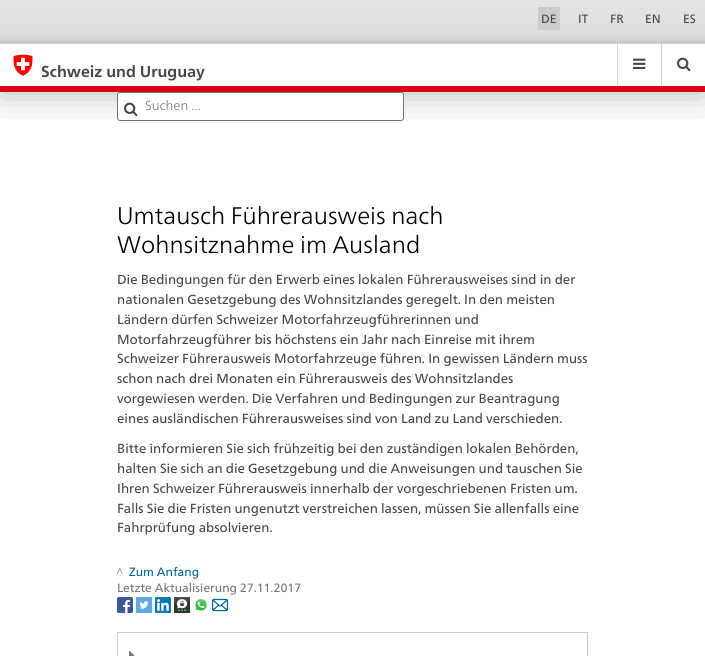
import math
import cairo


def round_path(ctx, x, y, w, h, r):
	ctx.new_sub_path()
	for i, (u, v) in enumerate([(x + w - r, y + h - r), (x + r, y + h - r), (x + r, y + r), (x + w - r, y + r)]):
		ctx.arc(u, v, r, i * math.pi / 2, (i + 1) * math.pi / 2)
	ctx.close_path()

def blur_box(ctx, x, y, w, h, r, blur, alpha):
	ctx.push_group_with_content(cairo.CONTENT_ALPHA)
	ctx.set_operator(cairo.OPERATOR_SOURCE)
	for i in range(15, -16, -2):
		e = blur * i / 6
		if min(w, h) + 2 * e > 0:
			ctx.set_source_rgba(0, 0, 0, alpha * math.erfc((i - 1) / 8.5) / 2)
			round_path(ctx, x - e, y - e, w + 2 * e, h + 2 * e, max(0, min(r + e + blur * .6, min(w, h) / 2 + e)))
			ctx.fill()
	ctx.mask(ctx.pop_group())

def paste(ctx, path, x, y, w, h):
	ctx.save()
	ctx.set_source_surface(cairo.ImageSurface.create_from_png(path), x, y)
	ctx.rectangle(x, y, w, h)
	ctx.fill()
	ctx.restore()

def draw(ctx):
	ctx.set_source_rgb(1, 1, 1)
	ctx.paint()
	ctx.save()
	ctx.rectangle(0, 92, 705, 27)
	ctx.clip()
	ctx.set_source_rgb(0, 0, 0)
	blur_box(ctx, 0, 44, 705, 48, 0, 18, 0.3)
	ctx.restore()
	gradient = cairo.LinearGradient(353, 0, 353, 43)
	gradient.add_color_stop_rgba(0, 0.894, 0.894, 0.894, 1)
	gradient.add_color_stop_rgba(0.39, 0.886, 0.886, 0.886, 1)
	gradient.add_color_stop_rgba(0.79, 0.867, 0.867, 0.867, 1)
	gradient.add_color_stop_rgba(0.91, 0.835, 0.835, 0.835, 1)
	gradient.add_color_stop_rgba(0.95, 0.812, 0.812, 0.812, 1)
	gradient.add_color_stop_rgba(1, 0.745, 0.745, 0.745, 1)
	ctx.set_source(gradient)
	ctx.rectangle(0, 0, 705, 43)
	ctx.fill()
	ctx.set_source_rgb(0.835, 0.835, 0.835)
	ctx.rectangle(0, 43, 705, 1)
	ctx.fill()
	ctx.set_source_rgb(0.8, 0.8, 0.8)
	ctx.rectangle(538, 7, 22, 23)
	ctx.fill()
	ctx.select_font_face('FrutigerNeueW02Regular')
	ctx.set_font_size(12)
	ctx.set_source_rgb(0.271, 0.271, 0.271)
	for x, y, s in [
		(541, 23, 'DE'),
		(578, 23, 'IT'),
		(610, 23, 'FR'),
		(645, 23, 'EN'),
		(683, 23, 'ES'),
	]:
		ctx.move_to(x, y)
		ctx.show_text(s)
	ctx.set_source_rgb(0.863, 0, 0.094)
	ctx.rectangle(0, 86, 705, 6)
	ctx.fill()
	paste(ctx, 'media/1.png', 13, 54, 20, 22)
	ctx.select_font_face('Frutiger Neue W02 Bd', cairo.FONT_SLANT_NORMAL, cairo.FONT_WEIGHT_BOLD)
	ctx.set_font_size(15.75)
	ctx.set_source_rgb(0.271, 0.271, 0.271)
	ctx.move_to(41, 77)
	ctx.show_text('Schweiz und Uruguay')
	ctx.set_source_rgb(0.835, 0.835, 0.835)
	ctx.rectangle(617, 44, 1, 42)
	ctx.fill()
	paste(ctx, 'media/2.png', 633, 58, 13, 11)
	ctx.rectangle(661, 44, 1, 42)
	ctx.fill()
	paste(ctx, 'media/3.png', 677, 57, 14, 14)
	ctx.set_source_rgb(1, 1, 1)
	round_path(ctx, 117.5, 92.5, 286, 28, 2.5)
	ctx.fill_preserve()
	ctx.set_source_rgb(0.459, 0.459, 0.459)
	ctx.set_line_width(1)
	ctx.stroke()
	paste(ctx, 'media/3.png', 124, 102, 14, 14)
	ctx.select_font_face('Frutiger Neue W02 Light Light')
	ctx.set_font_size(13.2)
	ctx.move_to(145, 110)
	ctx.show_text('Suchen ...')
	ctx.set_font_size(24)
	ctx.set_source_rgb(0, 0, 0)
	ctx.move_to(117, 224)
	ctx.show_text('Umtausch Führerausweis nach')
	ctx.move_to(117, 253)
	ctx.show_text('Wohnsitznahme im Ausland')
	ctx.select_font_face('FrutigerNeueW02Regular')
	ctx.set_font_size(13.2)
	ctx.set_source_rgb(0.271, 0.271, 0.271)
	for x, y, s in [
		(117, 284, 'Die Bedingungen für den Erwerb eines lokalen Führerausweises sind in der'),
		(117, 304, 'nationalen Gesetzgebung des Wohnsitzlandes geregelt. In den meisten'),
		(117, 324, 'Ländern dürfen Schweizer Motorfahrzeugführerinnen und'),
		(117, 344, 'Motorfahrzeugführer bis höchstens ein Jahr nach Einreise mit ihrem'),
		(117, 363, 'Schweizer Führerausweis Motorfahrzeuge führen. In gewissen Ländern muss'),
		(117, 383, 'schon nach drei Monaten ein Führerausweis des Wohnsitzlandes'),
		(117, 403, 'vorgewiesen werden. Die Verfahren und Bedingungen zur Beantragung'),
		(117, 423, 'eines ausländischen Führerausweises sind von Land zu Land verschieden.'),
		(117, 453, 'Bitte informieren Sie sich frühzeitig bei den zuständigen lokalen Behörden,'),
		(117, 473, 'halten Sie sich an die Gesetzgebung und die Anweisungen und tauschen Sie'),
		(117, 493, 'Ihren Schweizer Führerausweis innerhalb der vorgeschriebenen Fristen um.'),
		(117, 513, 'Falls Sie die Fristen ungenutzt verstreichen lassen, müssen Sie allenfalls eine'),
		(117, 532, 'Fahrprüfung absolvieren.'),
	]:
		ctx.move_to(x, y)
		ctx.show_text(s)
	ctx.select_font_face('Liberation Serif')
	ctx.set_font_size(12)
	ctx.set_source_rgb(0, 0.4, 0.6)
	ctx.move_to(117, 576)
	ctx.show_text('^')
	ctx.select_font_face('FrutigerNeueW02Regular')
	ctx.move_to(129, 576)
	ctx.show_text('Zum Anfang')
	ctx.set_source_rgb(0.459, 0.459, 0.459)
	ctx.move_to(117, 592)
	ctx.show_text('Letzte Aktualisierung 27.11.2017')
	paste(ctx, 'media/4.png', 117, 597, 16, 16)
	paste(ctx, 'media/5.png', 136, 597, 16, 16)
	paste(ctx, 'media/6.png', 155, 597, 16, 16)
	paste(ctx, 'media/7.png', 174, 597, 16, 16)
	paste(ctx, 'media/8.png', 194, 598, 14, 14)
	paste(ctx, 'media/9.png', 212, 598, 16, 14)
	ctx.set_source_rgb(0.8, 0.8, 0.8)
	ctx.rectangle(117, 632, 471, 1)
	ctx.rectangle(587, 632, 1, 24)
	ctx.rectangle(117, 632, 1, 24)
	ctx.fill()
	paste(ctx, 'media/10.png', 129, 650, 5, 6)


surface = cairo.ImageSurface(cairo.FORMAT_RGB24, 705, 656)
ctx = cairo.Context(surface)
options = cairo.FontOptions()
options.set_hint_metrics(cairo.HINT_METRICS_OFF)
options.set_hint_style(cairo.HINT_STYLE_NONE)
ctx.set_font_options(options)
ctx.set_miter_limit(4)
draw(ctx)
surface.write_to_png('image.png')
